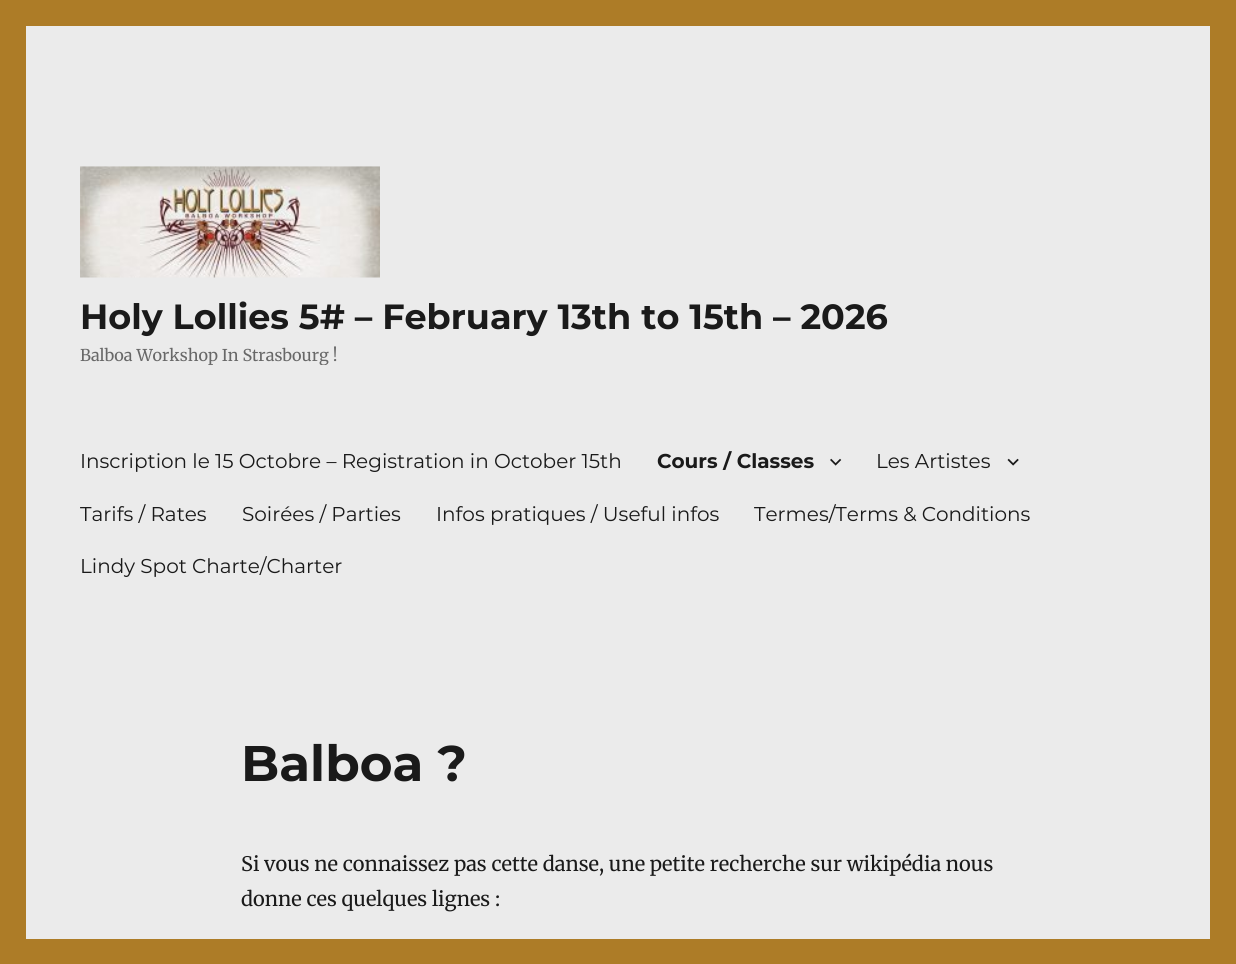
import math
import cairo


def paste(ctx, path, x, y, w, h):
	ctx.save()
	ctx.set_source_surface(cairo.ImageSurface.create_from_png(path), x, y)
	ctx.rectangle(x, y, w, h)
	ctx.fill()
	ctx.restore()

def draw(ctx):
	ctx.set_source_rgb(0.678, 0.486, 0.153)
	ctx.paint()
	ctx.set_source_rgb(0.918, 0.918, 0.918)
	ctx.rectangle(26, 26, 1184, 913)
	ctx.fill()
	paste(ctx, 'media/1.png', 80, 166, 300, 112)
	ctx.select_font_face('Montserrat', cairo.FONT_SLANT_NORMAL, cairo.FONT_WEIGHT_BOLD)
	ctx.set_font_size(35)
	ctx.set_source_rgb(0.102, 0.102, 0.102)
	ctx.move_to(80, 329)
	ctx.show_text('Holy Lollies 5# – February 13th to 15th – 2026')
	ctx.save()
	ctx.rectangle(80, 166, 808, 199)
	ctx.clip()
	ctx.select_font_face('Merriweather')
	ctx.set_font_size(16.25)
	ctx.set_source_rgb(0.408, 0.408, 0.408)
	ctx.move_to(80, 361)
	ctx.show_text('Balboa Workshop In Strasbourg !')
	ctx.restore()
	ctx.select_font_face('Montserrat')
	ctx.set_font_size(20)
	ctx.move_to(80, 468)
	ctx.show_text('Inscription le 15 Octobre – Registration in October 15th')
	ctx.select_font_face('Montserrat', cairo.FONT_SLANT_NORMAL, cairo.FONT_WEIGHT_BOLD)
	ctx.move_to(657, 468)
	ctx.show_text('Cours / Classes')
	paste(ctx, 'media/2.png', 830, 458, 12, 8)
	ctx.select_font_face('Montserrat')
	ctx.move_to(876, 468)
	ctx.show_text('Les Artistes')
	paste(ctx, 'media/3.png', 1007, 458, 12, 8)
	for x, y, s in [
		(80, 521, 'Tarifs / Rates'),
		(242, 521, 'Soirées / Parties'),
		(436, 521, 'Infos pratiques / Useful infos'),
		(754, 521, 'Termes/Terms & Conditions'),
		(80, 573, 'Lindy Spot Charte/Charter'),
	]:
		ctx.move_to(x, y)
		ctx.show_text(s)
	ctx.select_font_face('Montserrat', cairo.FONT_SLANT_NORMAL, cairo.FONT_WEIGHT_BOLD)
	ctx.set_font_size(50)
	ctx.move_to(241, 781)
	ctx.show_text('Balboa ?')
	ctx.select_font_face('Merriweather')
	ctx.set_font_size(20)
	ctx.move_to(241, 871)
	ctx.show_text('Si vous ne connaissez pas cette danse, une petite recherche sur wikipédia nous')
	ctx.move_to(241, 906)
	ctx.show_text('donne ces quelques lignes :')


surface = cairo.ImageSurface(cairo.FORMAT_RGB24, 1236, 964)
ctx = cairo.Context(surface)
options = cairo.FontOptions()
options.set_hint_metrics(cairo.HINT_METRICS_OFF)
options.set_hint_style(cairo.HINT_STYLE_NONE)
ctx.set_font_options(options)
ctx.set_miter_limit(4)
draw(ctx)
surface.write_to_png('image.png')
